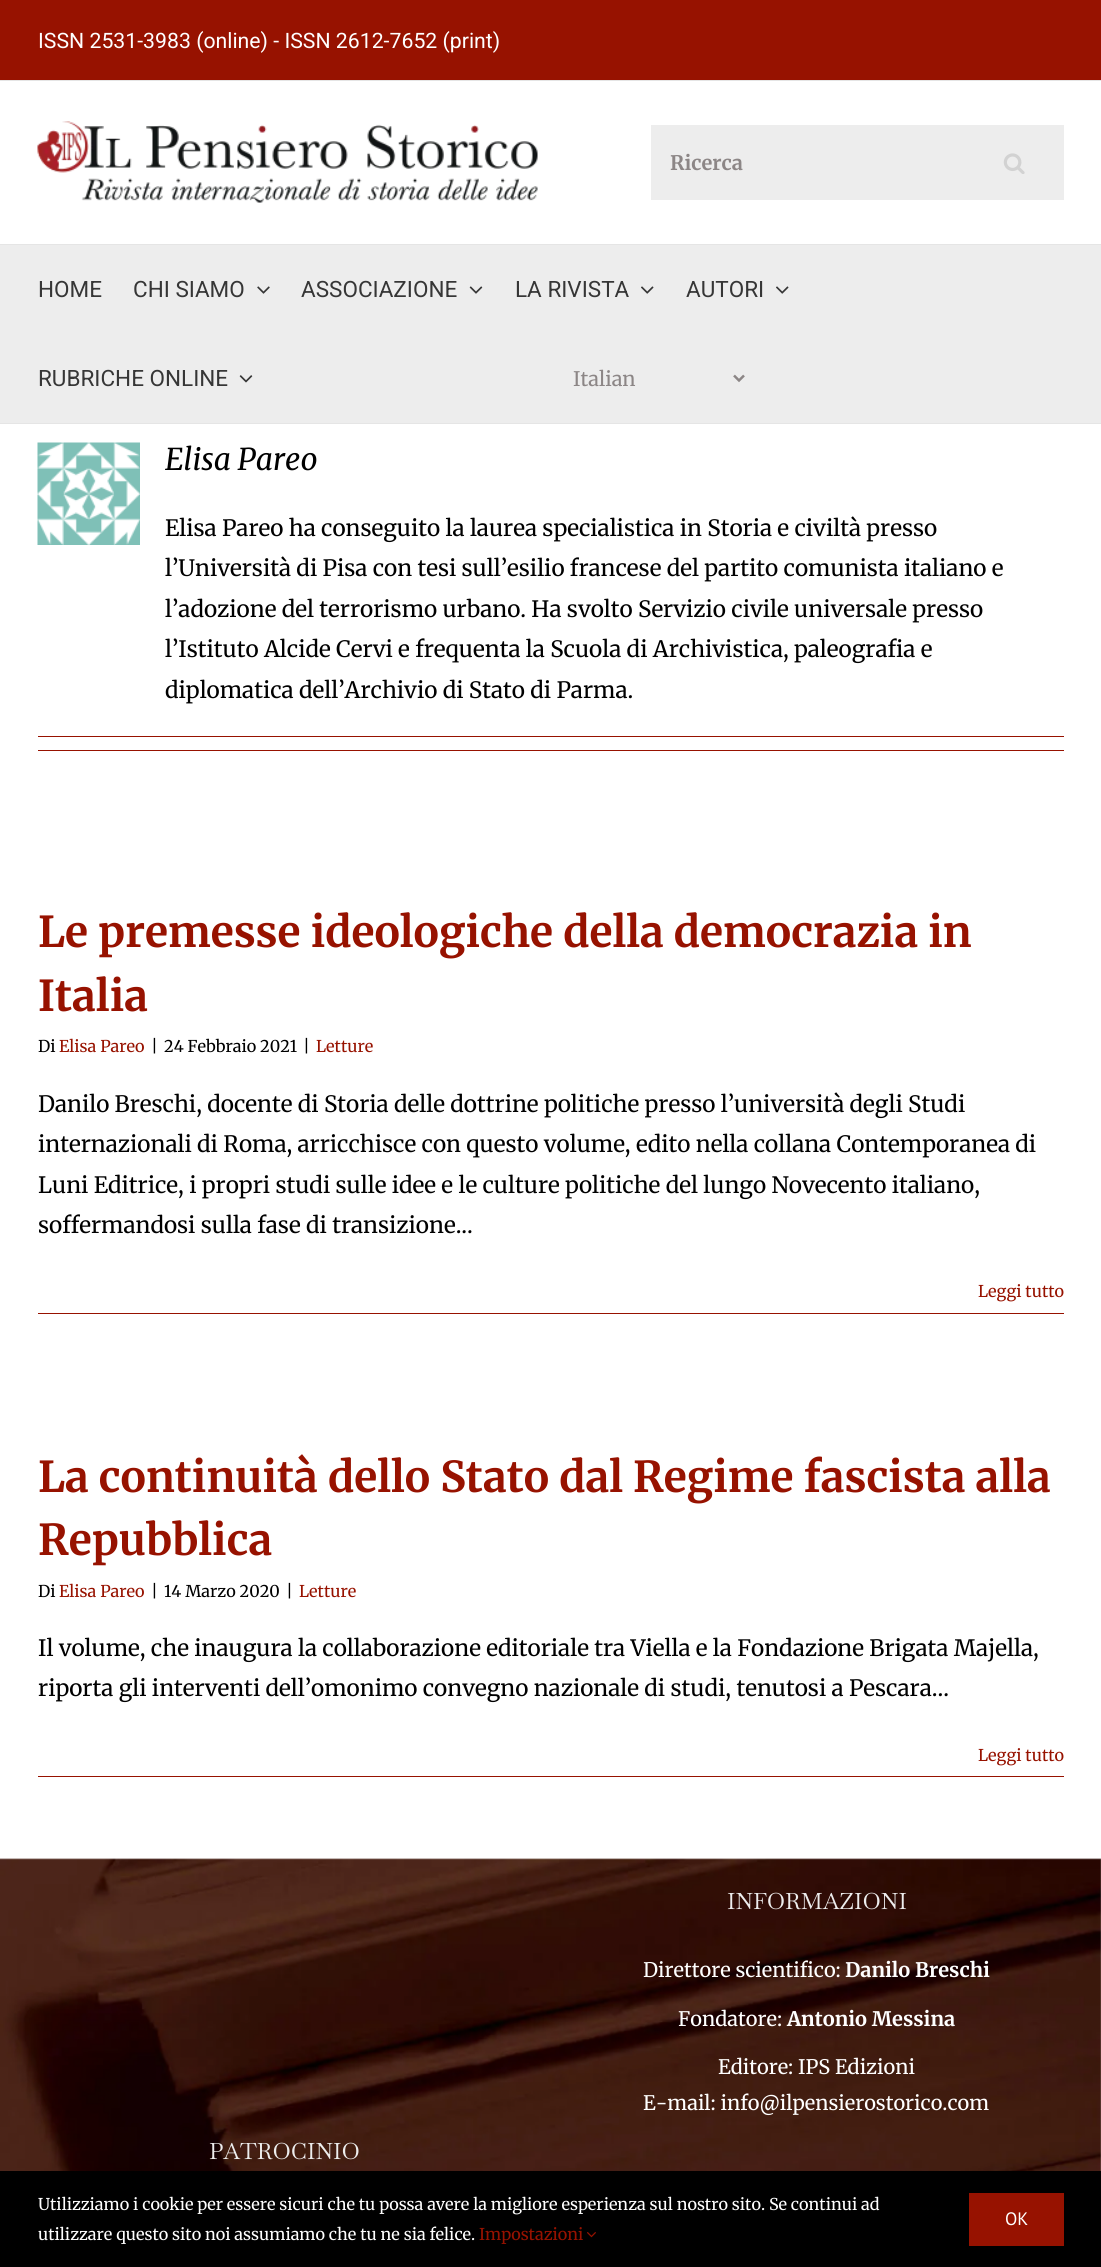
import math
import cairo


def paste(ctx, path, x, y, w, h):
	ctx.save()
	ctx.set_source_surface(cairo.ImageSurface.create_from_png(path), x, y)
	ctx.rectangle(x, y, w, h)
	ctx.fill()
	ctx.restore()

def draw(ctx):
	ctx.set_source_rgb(1, 1, 1)
	ctx.paint()
	ctx.set_source_rgb(0.592, 0.071, 0)
	ctx.rectangle(0, 0, 1101, 80)
	ctx.fill()
	ctx.set_source_rgb(0.898, 0.898, 0.898)
	ctx.rectangle(0, 80, 1101, 1)
	ctx.fill()
	ctx.select_font_face('Roboto')
	ctx.set_font_size(21.25)
	ctx.set_source_rgb(1, 1, 1)
	ctx.move_to(38, 48)
	ctx.show_text('ISSN 2531-3983 (online) - ISSN 2612-7652 (print)')
	ctx.set_source_rgb(0.898, 0.898, 0.898)
	ctx.rectangle(0, 244, 1101, 1)
	ctx.fill()
	paste(ctx, 'media/1.png', 37, 121, 501, 82)
	ctx.set_source_rgb(0.929, 0.929, 0.929)
	ctx.rectangle(651, 125, 413, 75)
	ctx.fill()
	ctx.select_font_face('Merriweather', cairo.FONT_SLANT_NORMAL, cairo.FONT_WEIGHT_BOLD)
	ctx.set_font_size(20)
	ctx.set_source_rgb(0.549, 0.525, 0.525)
	ctx.move_to(670, 170)
	ctx.show_text('Ricerca')
	paste(ctx, 'media/2.png', 1003, 153, 22, 21)
	ctx.set_source_rgb(0.929, 0.929, 0.929)
	ctx.rectangle(0, 245, 1101, 178)
	ctx.fill()
	ctx.set_source_rgb(0.898, 0.898, 0.898)
	ctx.rectangle(0, 423, 1101, 1)
	ctx.fill()
	ctx.select_font_face('Roboto')
	ctx.set_font_size(22.5)
	ctx.set_source_rgb(0.212, 0.212, 0.212)
	ctx.move_to(38, 297)
	ctx.show_text('HOME')
	ctx.move_to(133, 297)
	ctx.show_text('CHI SIAMO')
	paste(ctx, 'media/3.png', 257, 286, 13, 8)
	ctx.move_to(301, 297)
	ctx.show_text('ASSOCIAZIONE')
	paste(ctx, 'media/4.png', 469, 286, 14, 8)
	ctx.move_to(515, 297)
	ctx.show_text('LA RIVISTA')
	paste(ctx, 'media/5.png', 641, 286, 13, 8)
	ctx.move_to(686, 297)
	ctx.show_text('AUTORI')
	paste(ctx, 'media/5.png', 776, 286, 13, 8)
	ctx.move_to(38, 386)
	ctx.show_text('RUBRICHE ONLINE')
	paste(ctx, 'media/6.png', 239, 375, 14, 8)
	ctx.new_path()
	ctx.move_to(734, 375.5)
	ctx.line_to(739, 380.5)
	ctx.line_to(744, 375.5)
	ctx.set_source_rgb(0.549, 0.525, 0.525)
	ctx.set_line_width(2.5)
	ctx.stroke()
	ctx.select_font_face('Merriweather')
	ctx.set_font_size(20)
	ctx.move_to(573, 386)
	ctx.show_text('Italian')
	paste(ctx, 'media/7.png', 37, 442, 103, 103)
	ctx.select_font_face('Merriweather', cairo.FONT_SLANT_ITALIC)
	ctx.set_font_size(30)
	ctx.set_source_rgb(0, 0, 0)
	ctx.move_to(165, 470)
	ctx.show_text('Elisa Pareo')
	ctx.select_font_face('Merriweather')
	ctx.set_font_size(22.5)
	for x, y, s in [
		(165, 536, 'Elisa Pareo ha conseguito la laurea specialistica in Storia e civiltà presso'),
		(165, 576, 'l’Università di Pisa con tesi sull’esilio francese del partito comunista italiano e'),
		(165, 617, 'l’adozione del terrorismo urbano. Ha svolto Servizio civile universale presso'),
		(165, 657, 'l’Istituto Alcide Cervi e frequenta la Scuola di Archivistica, paleografia e'),
		(165, 698, 'diplomatica dell’Archivio di Stato di Parma.'),
	]:
		ctx.move_to(x, y)
		ctx.show_text(s)
	ctx.set_source_rgb(0.592, 0.071, 0)
	ctx.rectangle(38, 736, 1026, 1)
	ctx.fill()
	ctx.rectangle(38, 750, 1026, 1)
	ctx.fill()
	ctx.select_font_face('Merriweather', cairo.FONT_SLANT_NORMAL, cairo.FONT_WEIGHT_BOLD)
	ctx.set_font_size(42.5)
	ctx.move_to(38, 947)
	ctx.show_text('Le premesse ideologiche della democrazia in')
	ctx.move_to(38, 1011)
	ctx.show_text('Italia')
	ctx.select_font_face('Merriweather')
	ctx.set_font_size(16.25)
	ctx.set_source_rgb(0, 0, 0)
	ctx.move_to(38, 1052)
	ctx.show_text('Di')
	ctx.set_source_rgb(0.592, 0.071, 0)
	ctx.move_to(59, 1052)
	ctx.show_text('Elisa Pareo')
	ctx.set_source_rgb(0, 0, 0)
	for x, y, s in [
		(151, 1052, '|'),
		(164, 1052, '24 Febbraio 2021'),
		(303, 1052, '|'),
	]:
		ctx.move_to(x, y)
		ctx.show_text(s)
	ctx.set_source_rgb(0.592, 0.071, 0)
	ctx.move_to(316, 1052)
	ctx.show_text('Letture')
	ctx.set_font_size(22.5)
	ctx.set_source_rgb(0, 0, 0)
	for x, y, s in [
		(38, 1112, 'Danilo Breschi, docente di Storia delle dottrine politiche presso l’università degli Studi'),
		(38, 1152, 'internazionali di Roma, arricchisce con questo volume, edito nella collana Contemporanea di'),
		(38, 1193, 'Luni Editrice, i propri studi sulle idee e le culture politiche del lungo Novecento italiano,'),
		(38, 1233, 'soffermandosi sulla fase di transizione...'),
	]:
		ctx.move_to(x, y)
		ctx.show_text(s)
	ctx.set_source_rgb(0.592, 0.071, 0)
	ctx.rectangle(38, 1313, 1026, 1)
	ctx.fill()
	ctx.set_font_size(16.25)
	ctx.move_to(978, 1297)
	ctx.show_text('Leggi tutto')
	ctx.select_font_face('Merriweather', cairo.FONT_SLANT_NORMAL, cairo.FONT_WEIGHT_BOLD)
	ctx.set_font_size(42.5)
	ctx.move_to(38, 1492)
	ctx.show_text('La continuità dello Stato dal Regime fascista alla')
	ctx.move_to(38, 1555)
	ctx.show_text('Repubblica')
	ctx.select_font_face('Merriweather')
	ctx.set_font_size(16.25)
	ctx.set_source_rgb(0, 0, 0)
	ctx.move_to(38, 1597)
	ctx.show_text('Di')
	ctx.set_source_rgb(0.592, 0.071, 0)
	ctx.move_to(59, 1597)
	ctx.show_text('Elisa Pareo')
	ctx.set_source_rgb(0, 0, 0)
	for x, y, s in [
		(151, 1597, '|'),
		(164, 1597, '14 Marzo 2020'),
		(286, 1597, '|'),
	]:
		ctx.move_to(x, y)
		ctx.show_text(s)
	ctx.set_source_rgb(0.592, 0.071, 0)
	ctx.move_to(299, 1597)
	ctx.show_text('Letture')
	ctx.set_font_size(22.5)
	ctx.set_source_rgb(0, 0, 0)
	ctx.move_to(38, 1656)
	ctx.show_text('Il volume, che inaugura la collaborazione editoriale tra Viella e la Fondazione Brigata Majella,')
	ctx.move_to(38, 1696)
	ctx.show_text('riporta gli interventi dell’omonimo convegno nazionale di studi, tenutosi a Pescara...')
	ctx.set_source_rgb(0.592, 0.071, 0)
	ctx.rectangle(38, 1776, 1026, 1)
	ctx.fill()
	ctx.set_font_size(16.25)
	ctx.move_to(978, 1761)
	ctx.show_text('Leggi tutto')
	paste(ctx, 'media/8.png', 0, 1858, 1101, 313)
	ctx.select_font_face('Baskervville')
	ctx.set_font_size(22.5)
	ctx.set_source_rgb(0.929, 0.929, 0.929)
	ctx.move_to(727, 1909)
	ctx.show_text('INFORMAZIONI')
	ctx.select_font_face('Merriweather')
	ctx.set_font_size(20)
	ctx.set_source_rgb(1, 1, 1)
	ctx.move_to(643, 1977)
	ctx.show_text('Direttore scientifico:')
	ctx.select_font_face('Merriweather', cairo.FONT_SLANT_NORMAL, cairo.FONT_WEIGHT_BOLD)
	ctx.move_to(845, 1977)
	ctx.show_text('Danilo Breschi')
	ctx.select_font_face('Merriweather')
	ctx.move_to(678, 2026)
	ctx.show_text('Fondatore:')
	ctx.select_font_face('Merriweather', cairo.FONT_SLANT_NORMAL, cairo.FONT_WEIGHT_BOLD)
	ctx.move_to(787, 2026)
	ctx.show_text('Antonio Messina')
	ctx.select_font_face('Merriweather')
	ctx.move_to(718, 2074)
	ctx.show_text('Editore: IPS Edizioni')
	ctx.move_to(643, 2110)
	ctx.show_text('E-mail: info@ilpensierostorico.com')
	ctx.select_font_face('Baskervville')
	ctx.set_font_size(22.5)
	ctx.set_source_rgb(0.929, 0.929, 0.929)
	ctx.move_to(209, 2159)
	ctx.show_text('PATROCINIO')
	ctx.set_source_rgb(0, 0, 0)
	ctx.rectangle(0, 2171, 1101, 96)
	ctx.fill()
	ctx.select_font_face('Merriweather')
	ctx.set_font_size(16.25)
	ctx.set_source_rgb(1, 1, 1)
	ctx.move_to(38, 2210)
	ctx.show_text('Utilizziamo i cookie per essere sicuri che tu possa avere la migliore esperienza sul nostro sito. Se continui ad')
	ctx.move_to(38, 2240)
	ctx.show_text('utilizzare questo sito noi assumiamo che tu ne sia felice.')
	ctx.set_source_rgb(0.592, 0.071, 0)
	ctx.move_to(479, 2240)
	ctx.show_text('Impostazioni')
	paste(ctx, 'media/9.png', 587, 2232, 9, 6)
	ctx.rectangle(969, 2193, 95, 53)
	ctx.fill()
	ctx.select_font_face('PT Sans')
	ctx.set_font_size(18)
	ctx.set_source_rgb(1, 1, 1)
	ctx.move_to(1005, 2225)
	ctx.show_text('OK')


surface = cairo.ImageSurface(cairo.FORMAT_RGB24, 1101, 2267)
ctx = cairo.Context(surface)
options = cairo.FontOptions()
options.set_hint_metrics(cairo.HINT_METRICS_OFF)
options.set_hint_style(cairo.HINT_STYLE_NONE)
ctx.set_font_options(options)
ctx.set_miter_limit(4)
draw(ctx)
surface.write_to_png('image.png')
